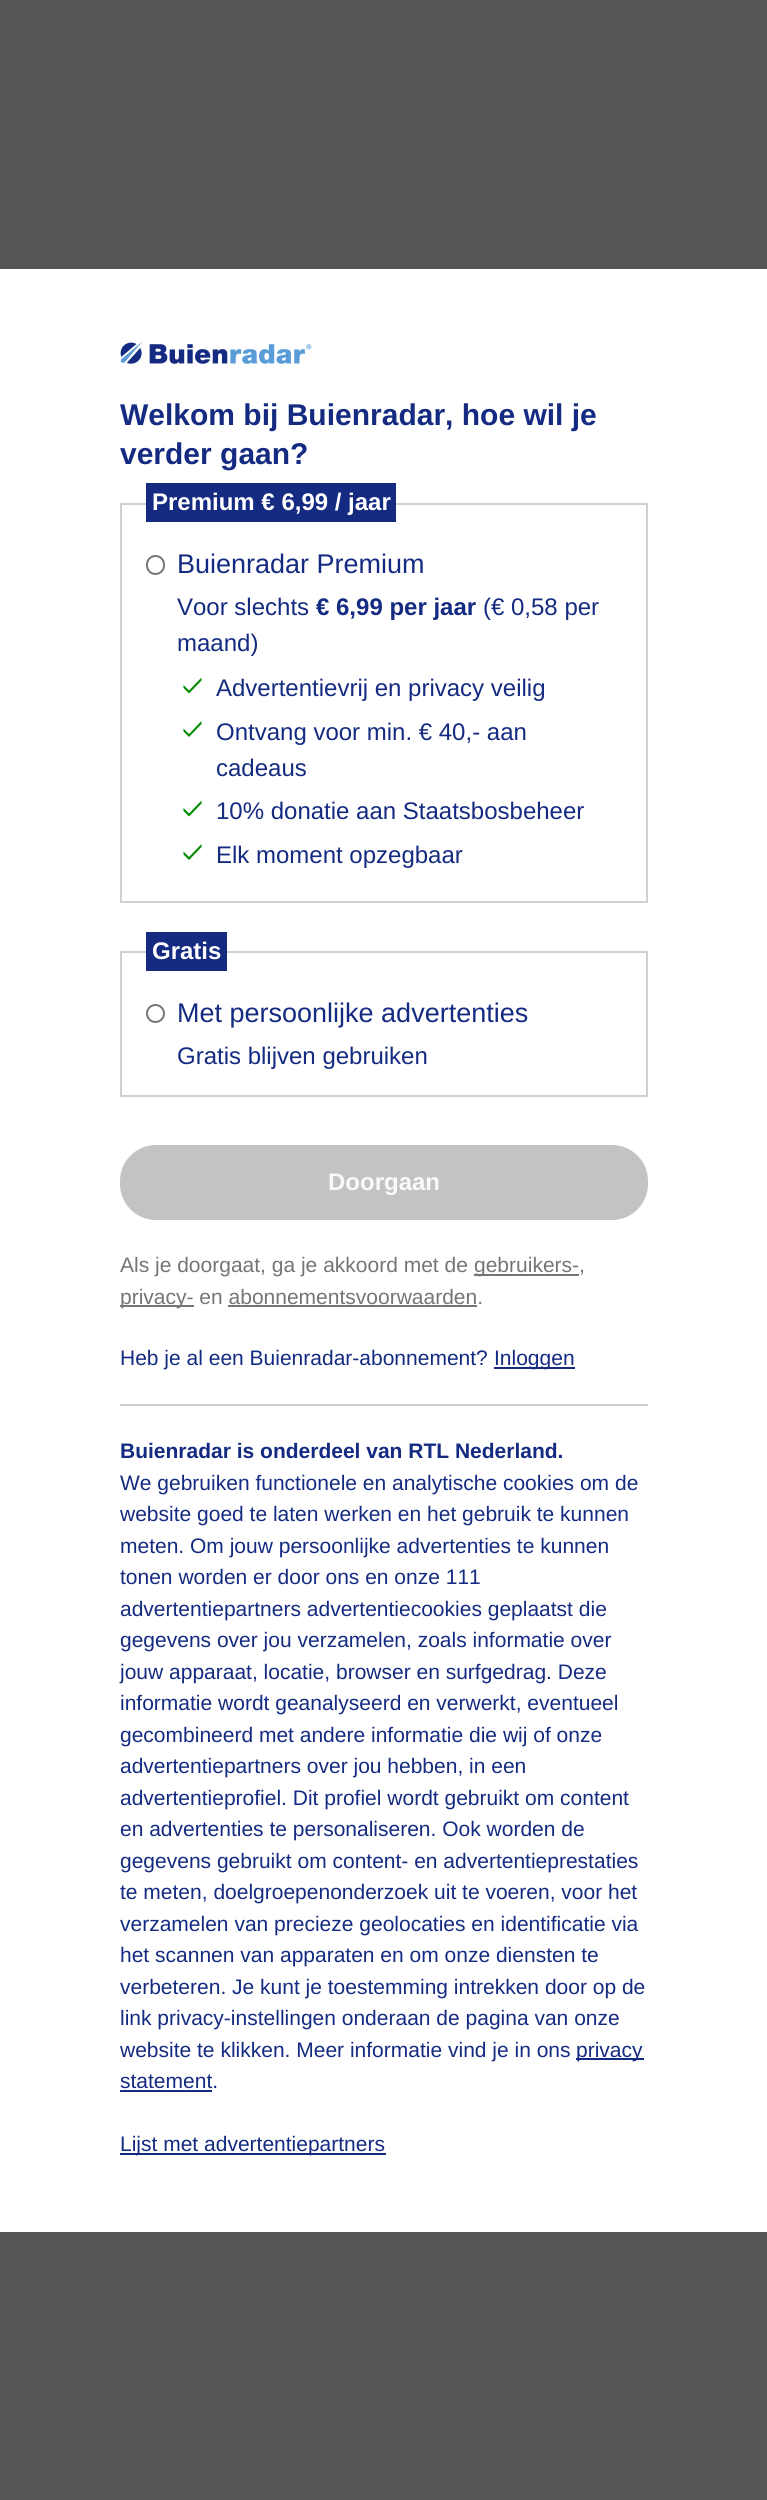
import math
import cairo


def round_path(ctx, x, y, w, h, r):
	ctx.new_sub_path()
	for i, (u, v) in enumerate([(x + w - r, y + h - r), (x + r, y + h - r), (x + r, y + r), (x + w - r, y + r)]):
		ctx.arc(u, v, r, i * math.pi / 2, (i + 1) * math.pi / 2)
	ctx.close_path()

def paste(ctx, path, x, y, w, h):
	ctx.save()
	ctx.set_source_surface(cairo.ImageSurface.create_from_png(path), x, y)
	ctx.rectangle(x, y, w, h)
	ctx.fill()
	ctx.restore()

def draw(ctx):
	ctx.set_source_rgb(0.333, 0.333, 0.333)
	ctx.paint()
	ctx.set_source_rgb(1, 1, 1)
	ctx.rectangle(0, 269, 767, 1963)
	ctx.fill()
	paste(ctx, 'media/1.png', 120, 341, 192, 23)
	ctx.select_font_face('Liberation Sans', cairo.FONT_SLANT_NORMAL, cairo.FONT_WEIGHT_BOLD)
	ctx.set_font_size(30)
	ctx.set_source_rgb(0.082, 0.169, 0.506)
	ctx.move_to(120, 425)
	ctx.show_text('Welkom bij Buienradar, hoe wil je')
	ctx.move_to(120, 464)
	ctx.show_text('verder gaan?')
	ctx.rectangle(121, 504, 526, 398)
	ctx.set_source_rgb(0.812, 0.82, 0.824)
	ctx.stroke()
	ctx.set_source_rgb(0.082, 0.169, 0.506)
	ctx.rectangle(146, 483, 250, 39)
	ctx.fill()
	ctx.set_font_size(24)
	ctx.set_source_rgb(1, 1, 1)
	ctx.move_to(152, 510)
	ctx.show_text('Premium € 6,99 / jaar')
	round_path(ctx, 147, 556, 17, 18, 8.5)
	ctx.set_source_rgb(0.463, 0.463, 0.463)
	ctx.stroke()
	ctx.select_font_face('Liberation Sans')
	ctx.set_font_size(27)
	ctx.set_source_rgb(0.082, 0.169, 0.506)
	ctx.move_to(177, 573)
	ctx.show_text('Buienradar Premium')
	ctx.set_font_size(24)
	ctx.move_to(177, 615)
	ctx.show_text('Voor slechts')
	ctx.select_font_face('Liberation Sans', cairo.FONT_SLANT_NORMAL, cairo.FONT_WEIGHT_BOLD)
	ctx.move_to(316, 615)
	ctx.show_text('€ 6,99 per jaar')
	ctx.select_font_face('Liberation Sans')
	ctx.move_to(483, 615)
	ctx.show_text('(€ 0,58 per')
	ctx.move_to(177, 651)
	ctx.show_text('maand)')
	ctx.set_source_rgb(0, 0.541, 0)
	ctx.new_path()
	ctx.move_to(189, 690.5)
	ctx.line_to(183.5, 685)
	ctx.line_to(183.5, 688)
	ctx.line_to(189, 693.5)
	ctx.line_to(201.5, 680.5)
	ctx.line_to(201.5, 677.5)
	ctx.close_path()
	ctx.move_to(189, 734)
	ctx.line_to(183.5, 728.5)
	ctx.line_to(183.5, 731.5)
	ctx.line_to(189, 737)
	ctx.line_to(201.5, 724)
	ctx.line_to(201.5, 721)
	ctx.close_path()
	ctx.fill()
	ctx.set_source_rgb(0.082, 0.169, 0.506)
	for x, y, s in [
		(216, 696, 'Advertentievrij en privacy veilig'),
		(216, 740, 'Ontvang voor min. € 40,- aan'),
		(216, 776, 'cadeaus'),
	]:
		ctx.move_to(x, y)
		ctx.show_text(s)
	ctx.set_source_rgb(0, 0.541, 0)
	ctx.new_path()
	ctx.move_to(189, 813.5)
	ctx.line_to(183.5, 808)
	ctx.line_to(183.5, 811)
	ctx.line_to(189, 816.5)
	ctx.line_to(201.5, 803.5)
	ctx.line_to(201.5, 800.5)
	ctx.close_path()
	ctx.move_to(189, 857)
	ctx.line_to(183.5, 851.5)
	ctx.line_to(183.5, 854.5)
	ctx.line_to(189, 860)
	ctx.line_to(201.5, 847)
	ctx.line_to(201.5, 844)
	ctx.close_path()
	ctx.fill()
	ctx.set_source_rgb(0.082, 0.169, 0.506)
	ctx.move_to(216, 819)
	ctx.show_text('10% donatie aan Staatsbosbeheer')
	ctx.move_to(216, 863)
	ctx.show_text('Elk moment opzegbaar')
	ctx.rectangle(121, 952, 526, 144)
	ctx.set_source_rgb(0.812, 0.82, 0.824)
	ctx.stroke()
	ctx.set_source_rgb(0.082, 0.169, 0.506)
	ctx.rectangle(146, 932, 81, 39)
	ctx.fill()
	ctx.select_font_face('Liberation Sans', cairo.FONT_SLANT_NORMAL, cairo.FONT_WEIGHT_BOLD)
	ctx.set_source_rgb(1, 1, 1)
	ctx.move_to(152, 959)
	ctx.show_text('Gratis')
	ctx.new_path()
	ctx.arc(155.5, 1013.5, 8.5, 0, 2 * math.pi)
	ctx.set_source_rgb(0.463, 0.463, 0.463)
	ctx.stroke()
	ctx.select_font_face('Liberation Sans')
	ctx.set_font_size(27)
	ctx.set_source_rgb(0.082, 0.169, 0.506)
	ctx.move_to(177, 1022)
	ctx.show_text('Met persoonlijke advertenties')
	ctx.set_font_size(24)
	ctx.move_to(177, 1064)
	ctx.show_text('Gratis blijven gebruiken')
	ctx.set_source_rgb(0.765, 0.765, 0.765)
	round_path(ctx, 120, 1145, 528, 75, 36)
	ctx.fill()
	ctx.select_font_face('Liberation Sans', cairo.FONT_SLANT_NORMAL, cairo.FONT_WEIGHT_BOLD)
	ctx.set_source_rgb(0.976, 0.976, 0.976)
	ctx.move_to(328, 1190)
	ctx.show_text('Doorgaan')
	ctx.select_font_face('Liberation Sans')
	ctx.set_font_size(21)
	ctx.set_source_rgb(0.459, 0.459, 0.459)
	ctx.move_to(120, 1272)
	ctx.show_text('Als je doorgaat, ga je akkoord met de')
	ctx.rectangle(474, 1274, 105, 2)
	ctx.fill()
	ctx.move_to(474, 1272)
	ctx.show_text('gebruikers-,')
	ctx.rectangle(120, 1305, 74, 2)
	ctx.fill()
	ctx.move_to(120, 1304)
	ctx.show_text('privacy- en abonnementsvoorwaarden.')
	ctx.rectangle(228, 1305, 249, 2)
	ctx.fill()
	ctx.set_source_rgb(0.082, 0.169, 0.506)
	ctx.move_to(120, 1365)
	ctx.show_text('Heb je al een Buienradar-abonnement?')
	ctx.rectangle(494, 1367, 81, 2)
	ctx.fill()
	ctx.move_to(494, 1365)
	ctx.show_text('Inloggen')
	ctx.set_source_rgb(0.812, 0.82, 0.824)
	ctx.rectangle(120, 1404, 528, 2)
	ctx.fill()
	ctx.select_font_face('Liberation Sans', cairo.FONT_SLANT_NORMAL, cairo.FONT_WEIGHT_BOLD)
	ctx.set_source_rgb(0.082, 0.169, 0.506)
	ctx.move_to(120, 1458)
	ctx.show_text('Buienradar is onderdeel van RTL Nederland.')
	ctx.select_font_face('Liberation Sans')
	for x, y, s in [
		(120, 1490, 'We gebruiken functionele en analytische cookies om de'),
		(120, 1521, 'website goed te laten werken en het gebruik te kunnen'),
		(120, 1553, 'meten. Om jouw persoonlijke advertenties te kunnen'),
		(120, 1584, 'tonen worden er door ons en onze 111'),
		(120, 1616, 'advertentiepartners advertentiecookies geplaatst die'),
		(120, 1647, 'gegevens over jou verzamelen, zoals informatie over'),
		(120, 1679, 'jouw apparaat, locatie, browser en surfgedrag. Deze'),
		(120, 1710, 'informatie wordt geanalyseerd en verwerkt, eventueel'),
		(120, 1742, 'gecombineerd met andere informatie die wij of onze'),
		(120, 1773, 'advertentiepartners over jou hebben, in een'),
		(120, 1805, 'advertentieprofiel. Dit profiel wordt gebruikt om content'),
		(120, 1836, 'en advertenties te personaliseren. Ook worden de'),
		(120, 1868, 'gegevens gebruikt om content- en advertentieprestaties'),
		(120, 1899, 'te meten, doelgroepenonderzoek uit te voeren, voor het'),
		(120, 1931, 'verzamelen van precieze geolocaties en identificatie via'),
		(120, 1962, 'het scannen van apparaten en om onze diensten te'),
		(120, 1994, 'verbeteren. Je kunt je toestemming intrekken door op de'),
		(120, 2025, 'link privacy-instellingen onderaan de pagina van onze'),
		(120, 2057, 'website te klikken. Meer informatie vind je in ons'),
	]:
		ctx.move_to(x, y)
		ctx.show_text(s)
	ctx.rectangle(576, 2058, 68, 2)
	ctx.fill()
	ctx.move_to(576, 2057)
	ctx.show_text('privacy')
	ctx.move_to(120, 2088)
	ctx.show_text('statement.')
	ctx.rectangle(120, 2090, 92, 2)
	ctx.fill()
	ctx.rectangle(120, 2153, 266, 2)
	ctx.fill()
	ctx.move_to(120, 2151)
	ctx.show_text('Lijst met advertentiepartners')


surface = cairo.ImageSurface(cairo.FORMAT_RGB24, 767, 2500)
ctx = cairo.Context(surface)
options = cairo.FontOptions()
options.set_hint_metrics(cairo.HINT_METRICS_OFF)
options.set_hint_style(cairo.HINT_STYLE_NONE)
ctx.set_font_options(options)
ctx.set_miter_limit(4)
draw(ctx)
surface.write_to_png('image.png')
